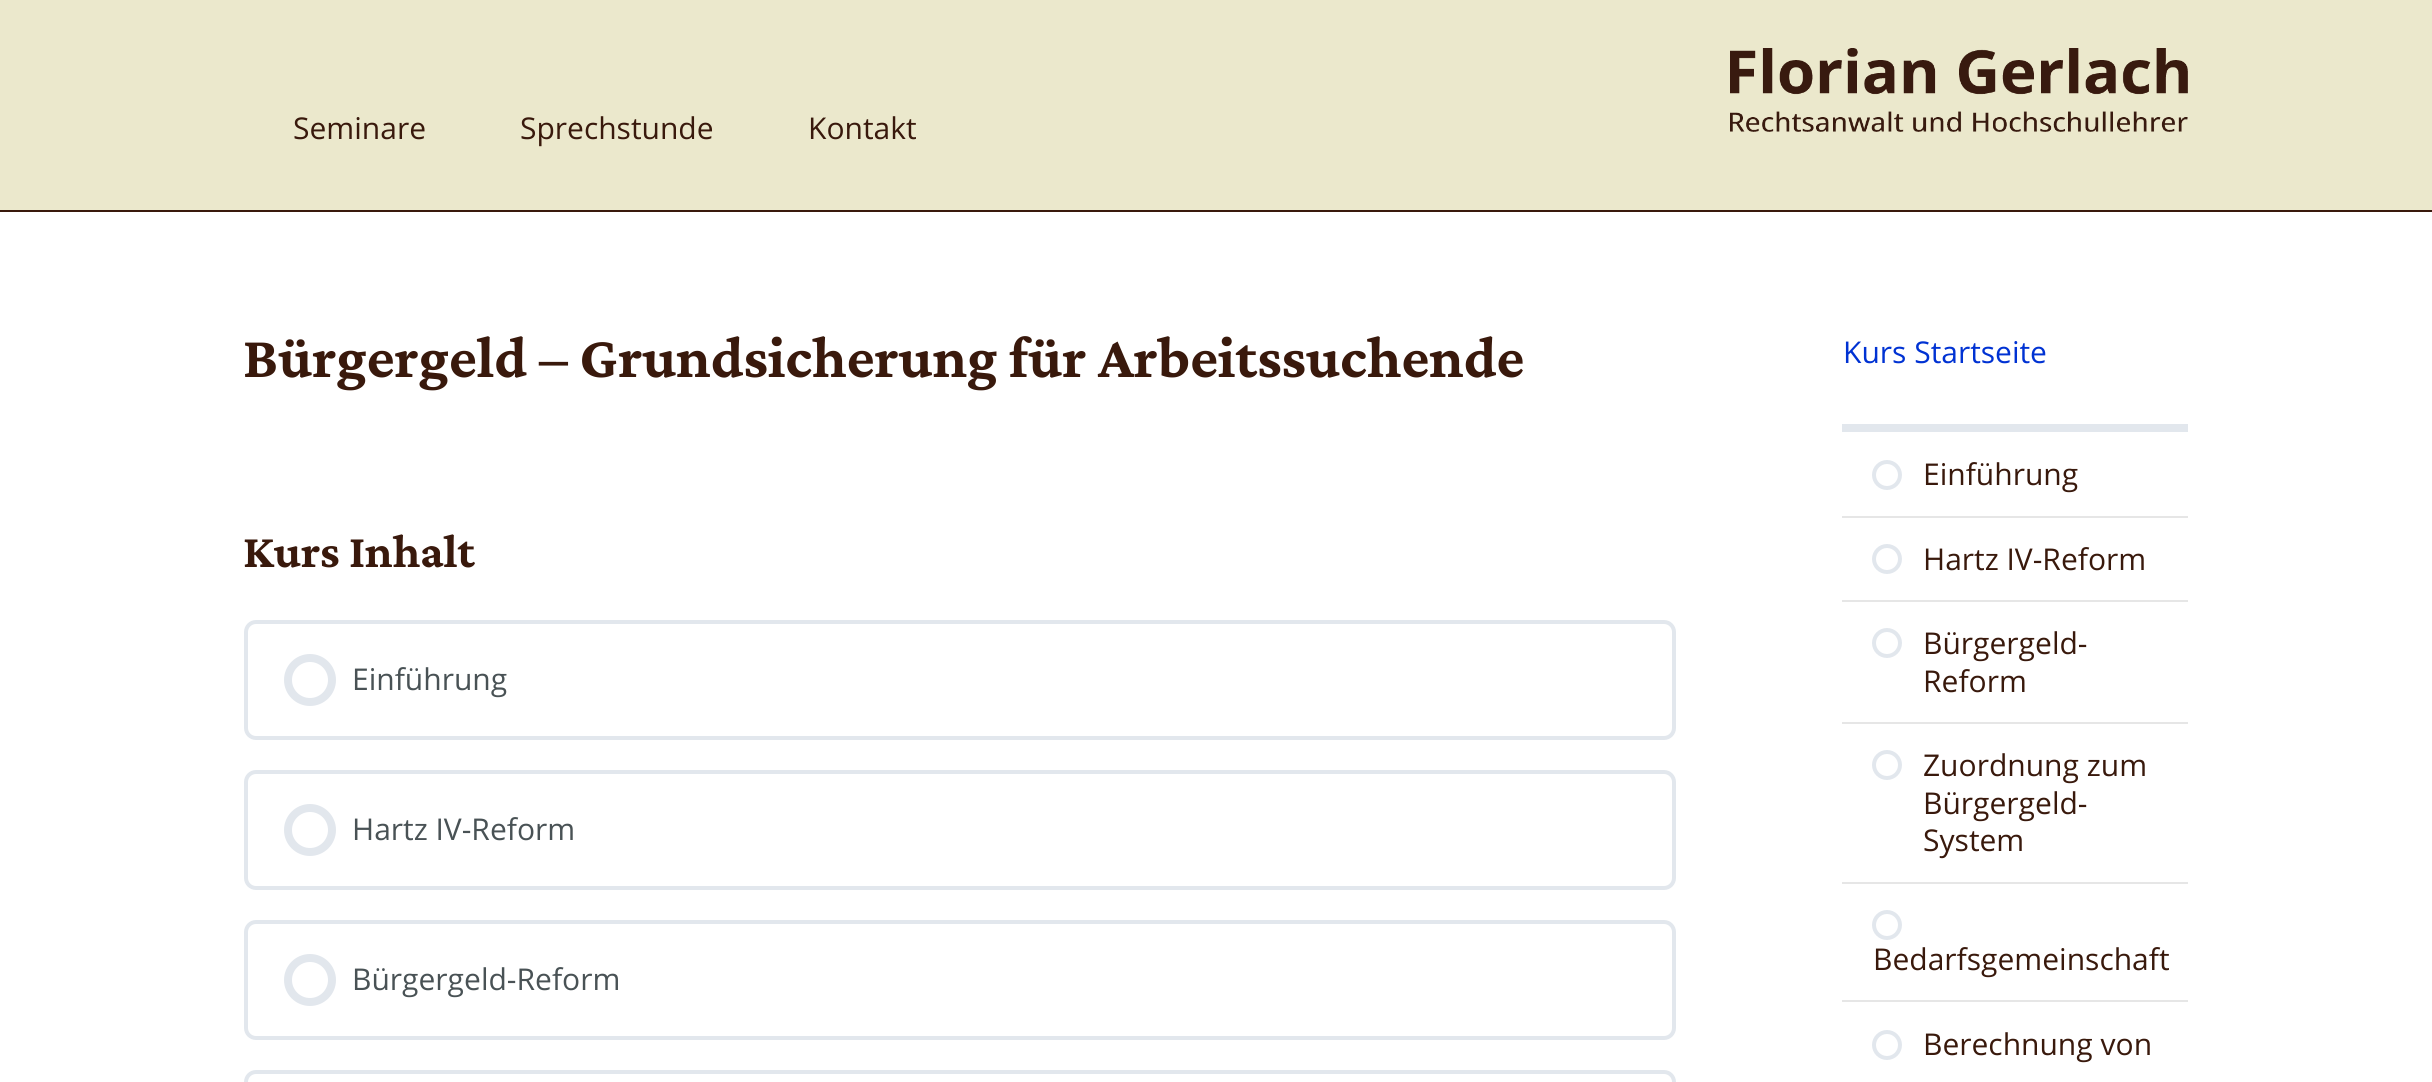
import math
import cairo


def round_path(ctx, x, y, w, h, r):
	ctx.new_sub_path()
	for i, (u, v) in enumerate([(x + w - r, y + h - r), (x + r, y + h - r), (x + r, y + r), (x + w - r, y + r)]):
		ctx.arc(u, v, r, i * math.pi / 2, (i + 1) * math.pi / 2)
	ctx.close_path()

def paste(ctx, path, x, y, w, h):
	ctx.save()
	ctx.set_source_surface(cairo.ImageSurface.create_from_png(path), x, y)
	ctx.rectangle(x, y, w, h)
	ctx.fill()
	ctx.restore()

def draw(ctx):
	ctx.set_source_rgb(0.918, 0.91, 0.8)
	ctx.paint()
	ctx.set_source_rgb(0.224, 0.098, 0.047)
	ctx.rectangle(0, 210, 2432, 2)
	ctx.fill()
	ctx.select_font_face('Open Sans')
	ctx.set_font_size(30)
	for x, y, s in [
		(293, 139, 'Seminare'),
		(520, 139, 'Sprechstunde'),
		(808, 139, 'Kontakt'),
	]:
		ctx.move_to(x, y)
		ctx.show_text(s)
	paste(ctx, 'media/1.png', 1730, 48, 458, 84)
	ctx.set_source_rgb(1, 1, 1)
	ctx.rectangle(0, 212, 2432, 870)
	ctx.fill()
	ctx.select_font_face('Crimson Pro', cairo.FONT_SLANT_NORMAL, cairo.FONT_WEIGHT_BOLD)
	ctx.set_font_size(60)
	ctx.set_source_rgb(0.224, 0.098, 0.047)
	ctx.move_to(243, 377)
	ctx.show_text('Bürgergeld – Grundsicherung für Arbeitssuchende')
	ctx.set_font_size(48)
	ctx.move_to(243, 567)
	ctx.show_text('Kurs Inhalt')
	round_path(ctx, 246, 622, 1428, 116, 10)
	ctx.set_source_rgb(0.886, 0.906, 0.929)
	ctx.set_line_width(4)
	ctx.stroke()
	ctx.arc(310, 680, 22, 0, 2 * math.pi)
	ctx.set_line_width(8)
	ctx.stroke()
	ctx.select_font_face('Open Sans')
	ctx.set_font_size(30)
	ctx.set_source_rgb(0.286, 0.322, 0.333)
	ctx.move_to(352, 690)
	ctx.show_text('Einführung')
	round_path(ctx, 246, 772, 1428, 116, 10)
	ctx.set_source_rgb(0.886, 0.906, 0.929)
	ctx.set_line_width(4)
	ctx.stroke()
	ctx.arc(310, 830, 22, 0, 2 * math.pi)
	ctx.set_line_width(8)
	ctx.stroke()
	ctx.set_source_rgb(0.286, 0.322, 0.333)
	ctx.move_to(352, 840)
	ctx.show_text('Hartz IV-Reform')
	round_path(ctx, 246, 922, 1428, 116, 10)
	ctx.set_source_rgb(0.886, 0.906, 0.929)
	ctx.set_line_width(4)
	ctx.stroke()
	ctx.arc(310, 980, 22, 0, 2 * math.pi)
	ctx.set_line_width(8)
	ctx.stroke()
	ctx.set_source_rgb(0.286, 0.322, 0.333)
	ctx.move_to(352, 990)
	ctx.show_text('Bürgergeld-Reform')
	round_path(ctx, 246, 1072, 1428, 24, 10)
	ctx.set_source_rgb(0.886, 0.906, 0.929)
	ctx.set_line_width(4)
	ctx.stroke()
	ctx.rectangle(1842, 424, 346, 8)
	ctx.fill()
	ctx.set_source_rgb(0, 0.196, 0.827)
	ctx.move_to(1843, 363)
	ctx.show_text('Kurs Startseite')
	ctx.set_source_rgb(0.902, 0.902, 0.902)
	ctx.rectangle(1842, 516, 346, 2)
	ctx.fill()
	ctx.arc(1887, 475, 13, 0, 2 * math.pi)
	ctx.set_source_rgb(0.886, 0.906, 0.929)
	ctx.stroke()
	ctx.set_source_rgb(0.224, 0.098, 0.047)
	ctx.move_to(1923, 485)
	ctx.show_text('Einführung')
	ctx.set_source_rgb(0.902, 0.902, 0.902)
	ctx.rectangle(1842, 600, 346, 2)
	ctx.fill()
	ctx.arc(1887, 559, 13, 0, 2 * math.pi)
	ctx.set_source_rgb(0.886, 0.906, 0.929)
	ctx.stroke()
	ctx.set_source_rgb(0.224, 0.098, 0.047)
	ctx.move_to(1923, 570)
	ctx.show_text('Hartz IV-Reform')
	ctx.set_source_rgb(0.902, 0.902, 0.902)
	ctx.rectangle(1842, 722, 346, 2)
	ctx.fill()
	ctx.arc(1887, 643, 13, 0, 2 * math.pi)
	ctx.set_source_rgb(0.886, 0.906, 0.929)
	ctx.stroke()
	ctx.set_source_rgb(0.224, 0.098, 0.047)
	ctx.move_to(1923, 654)
	ctx.show_text('Bürgergeld-')
	ctx.move_to(1923, 692)
	ctx.show_text('Reform')
	ctx.set_source_rgb(0.902, 0.902, 0.902)
	ctx.rectangle(1842, 882, 346, 2)
	ctx.fill()
	ctx.arc(1887, 765, 13, 0, 2 * math.pi)
	ctx.set_source_rgb(0.886, 0.906, 0.929)
	ctx.stroke()
	ctx.set_source_rgb(0.224, 0.098, 0.047)
	for x, y, s in [
		(1923, 776, 'Zuordnung zum'),
		(1923, 814, 'Bürgergeld-'),
		(1923, 851, 'System'),
	]:
		ctx.move_to(x, y)
		ctx.show_text(s)
	ctx.set_source_rgb(0.902, 0.902, 0.902)
	ctx.rectangle(1842, 1000, 346, 2)
	ctx.fill()
	ctx.arc(1887, 925, 13, 0, 2 * math.pi)
	ctx.set_source_rgb(0.886, 0.906, 0.929)
	ctx.stroke()
	ctx.set_source_rgb(0.224, 0.098, 0.047)
	ctx.move_to(1873, 970)
	ctx.show_text('Bedarfsgemeinschaft')
	ctx.new_path()
	ctx.arc(1887, 1045, 13, 0, 2 * math.pi)
	ctx.set_source_rgb(0.886, 0.906, 0.929)
	ctx.stroke()
	ctx.set_source_rgb(0.224, 0.098, 0.047)
	ctx.move_to(1923, 1055)
	ctx.show_text('Berechnung von')


surface = cairo.ImageSurface(cairo.FORMAT_RGB24, 2432, 1082)
ctx = cairo.Context(surface)
options = cairo.FontOptions()
options.set_hint_metrics(cairo.HINT_METRICS_OFF)
options.set_hint_style(cairo.HINT_STYLE_NONE)
ctx.set_font_options(options)
ctx.set_miter_limit(4)
draw(ctx)
surface.write_to_png('image.png')
